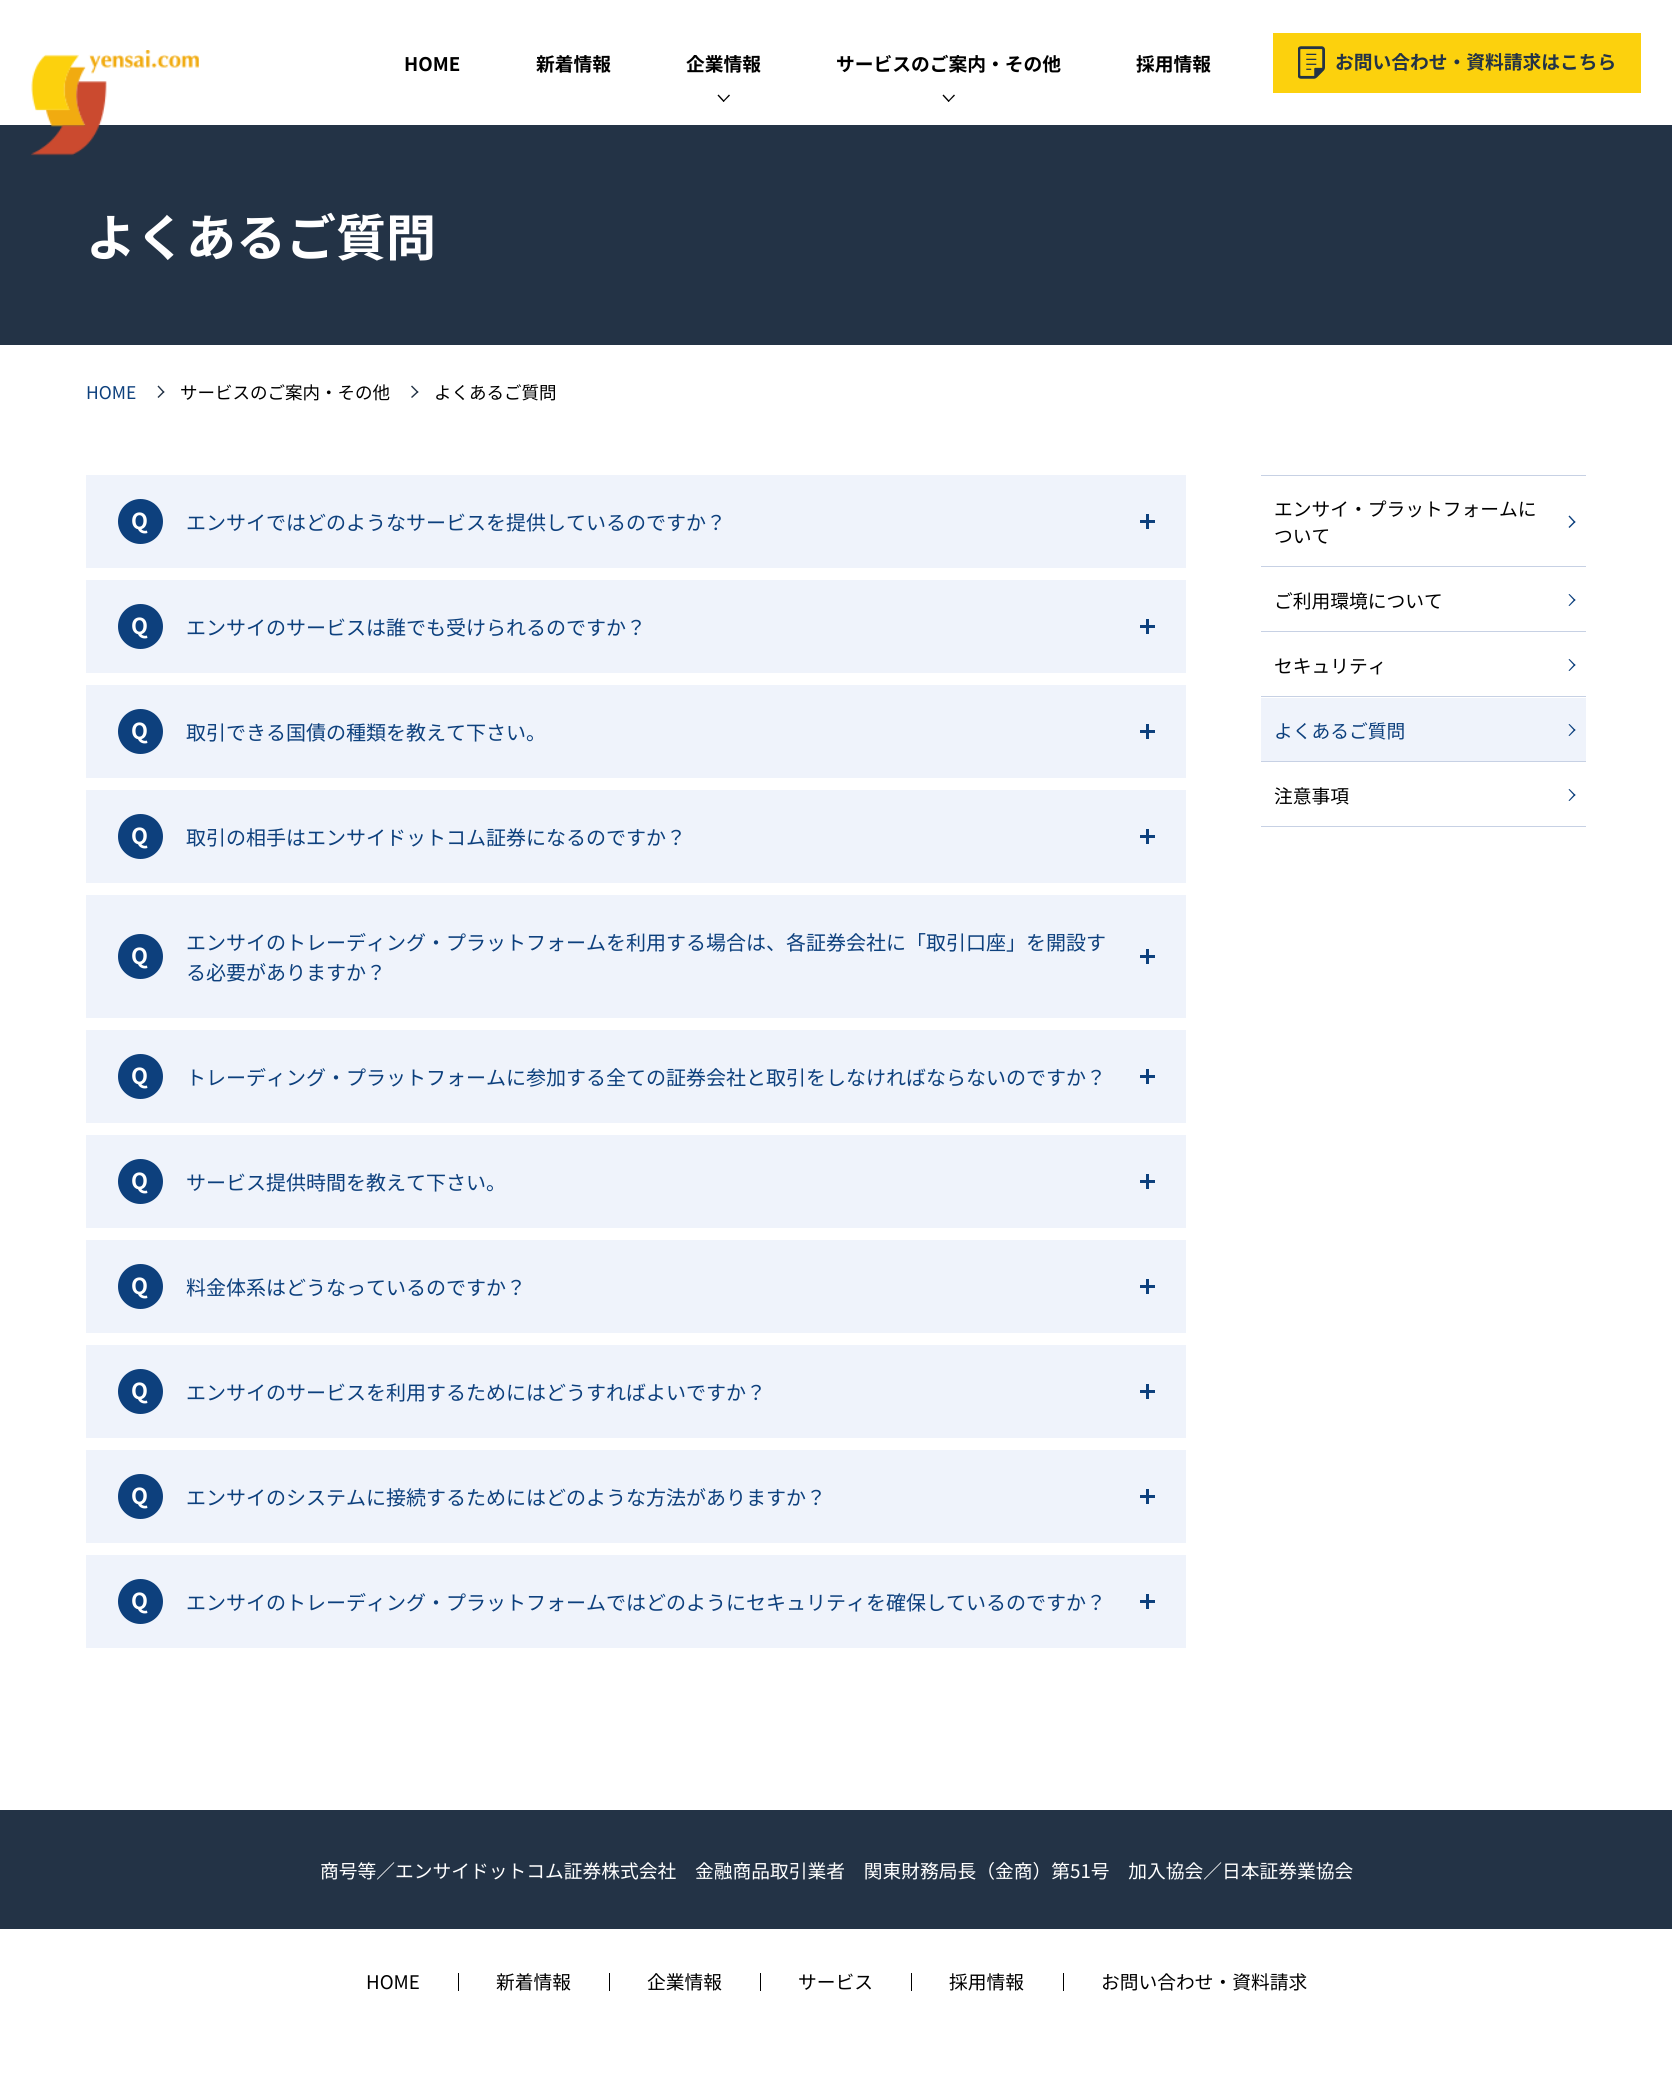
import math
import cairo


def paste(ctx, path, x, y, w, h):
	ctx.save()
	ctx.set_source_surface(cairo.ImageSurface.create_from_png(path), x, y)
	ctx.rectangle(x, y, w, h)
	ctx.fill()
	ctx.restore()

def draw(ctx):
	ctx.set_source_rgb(1, 1, 1)
	ctx.paint()
	ctx.set_source_rgb(0.137, 0.2, 0.275)
	ctx.rectangle(0, 125, 1672, 220)
	ctx.fill()
	paste(ctx, 'media/1.png', 31, 50, 168, 106)
	ctx.select_font_face('Noto Sans JP', cairo.FONT_SLANT_NORMAL, cairo.FONT_WEIGHT_BOLD)
	ctx.set_font_size(18.75)
	ctx.set_source_rgb(0, 0, 0)
	for x, y, s in [
		(404, 71, 'HOME'),
		(536, 71, '新着情報'),
		(686, 71, '企業情報'),
	]:
		ctx.move_to(x, y)
		ctx.show_text(s)
	ctx.new_path()
	ctx.move_to(723, 101)
	ctx.line_to(729, 94.5)
	ctx.line_to(730, 95.5)
	ctx.line_to(723.5, 102)
	ctx.close_path()
	ctx.fill()
	ctx.new_path()
	ctx.move_to(717.5, 95.5)
	ctx.line_to(718.5, 94.5)
	ctx.line_to(724.5, 101)
	ctx.line_to(723.5, 102)
	ctx.close_path()
	ctx.fill()
	ctx.move_to(836, 71)
	ctx.show_text('サービスのご案内・その他')
	ctx.new_path()
	ctx.move_to(948, 101)
	ctx.line_to(954, 94.5)
	ctx.line_to(955, 95.5)
	ctx.line_to(948.5, 102)
	ctx.close_path()
	ctx.fill()
	ctx.new_path()
	ctx.move_to(942.5, 95.5)
	ctx.line_to(943.5, 94.5)
	ctx.line_to(949.5, 101)
	ctx.line_to(948.5, 102)
	ctx.close_path()
	ctx.fill()
	ctx.move_to(1136, 71)
	ctx.show_text('採用情報')
	ctx.set_source_rgb(0.988, 0.82, 0.051)
	ctx.rectangle(1273, 33, 368, 60)
	ctx.fill()
	paste(ctx, 'media/2.png', 1298, 46, 27, 33)
	ctx.set_source_rgb(0.137, 0.2, 0.275)
	ctx.move_to(1335, 69)
	ctx.show_text('お問い合わせ・資料請求はこちら')
	ctx.set_font_size(50)
	ctx.set_source_rgb(1, 1, 1)
	ctx.move_to(86, 256)
	ctx.show_text('よくあるご質問')
	ctx.select_font_face('Noto Sans JP')
	ctx.set_font_size(17.5)
	ctx.set_source_rgb(0.051, 0.251, 0.49)
	ctx.move_to(86, 399)
	ctx.show_text('HOME')
	ctx.set_source_rgb(0.137, 0.2, 0.275)
	ctx.new_path()
	ctx.move_to(158.5, 385.5)
	ctx.line_to(164.5, 392)
	ctx.line_to(163.5, 393)
	ctx.line_to(157.5, 386.5)
	ctx.close_path()
	ctx.fill()
	ctx.new_path()
	ctx.move_to(163.5, 391)
	ctx.line_to(164.5, 392)
	ctx.line_to(158.5, 398)
	ctx.line_to(157.5, 397)
	ctx.close_path()
	ctx.fill()
	ctx.set_source_rgb(0, 0, 0)
	ctx.move_to(180, 399)
	ctx.show_text('サービスのご案内・その他')
	ctx.set_source_rgb(0.137, 0.2, 0.275)
	ctx.new_path()
	ctx.move_to(412, 385.5)
	ctx.line_to(418.5, 392)
	ctx.line_to(417.5, 393)
	ctx.line_to(411, 386.5)
	ctx.close_path()
	ctx.fill()
	ctx.new_path()
	ctx.move_to(417.5, 391)
	ctx.line_to(418.5, 392)
	ctx.line_to(412, 398)
	ctx.line_to(411, 397)
	ctx.close_path()
	ctx.fill()
	ctx.set_source_rgb(0, 0, 0)
	ctx.move_to(434, 399)
	ctx.show_text('よくあるご質問')
	ctx.set_source_rgb(0.937, 0.953, 0.984)
	ctx.rectangle(86, 475, 1100, 93)
	ctx.fill()
	ctx.set_source_rgb(0.051, 0.251, 0.49)
	ctx.arc(140.5, 521.5, 22.5, 0, 2 * math.pi)
	ctx.fill()
	ctx.select_font_face('Noto Sans JP', cairo.FONT_SLANT_NORMAL, cairo.FONT_WEIGHT_BOLD)
	ctx.set_font_size(22)
	ctx.set_source_rgb(1, 1, 1)
	ctx.move_to(131, 529)
	ctx.show_text('Q')
	ctx.select_font_face('Noto Sans JP')
	ctx.set_font_size(20)
	ctx.set_source_rgb(0.051, 0.251, 0.49)
	ctx.move_to(186, 530)
	ctx.show_text('エンサイではどのようなサービスを提供しているのですか？')
	ctx.rectangle(1140, 520, 15, 3)
	ctx.rectangle(1146, 514, 3, 15)
	ctx.fill()
	ctx.set_source_rgb(0.937, 0.953, 0.984)
	ctx.rectangle(86, 580, 1100, 93)
	ctx.fill()
	ctx.set_source_rgb(0.051, 0.251, 0.49)
	ctx.arc(140.5, 626.5, 22.5, 0, 2 * math.pi)
	ctx.fill()
	ctx.select_font_face('Noto Sans JP', cairo.FONT_SLANT_NORMAL, cairo.FONT_WEIGHT_BOLD)
	ctx.set_font_size(22)
	ctx.set_source_rgb(1, 1, 1)
	ctx.move_to(131, 634)
	ctx.show_text('Q')
	ctx.select_font_face('Noto Sans JP')
	ctx.set_font_size(20)
	ctx.set_source_rgb(0.051, 0.251, 0.49)
	ctx.move_to(186, 635)
	ctx.show_text('エンサイのサービスは誰でも受けられるのですか？')
	ctx.rectangle(1140, 625, 15, 3)
	ctx.rectangle(1146, 619, 3, 15)
	ctx.fill()
	ctx.set_source_rgb(0.937, 0.953, 0.984)
	ctx.rectangle(86, 685, 1100, 93)
	ctx.fill()
	ctx.set_source_rgb(0.051, 0.251, 0.49)
	ctx.arc(140.5, 731.5, 22.5, 0, 2 * math.pi)
	ctx.fill()
	ctx.select_font_face('Noto Sans JP', cairo.FONT_SLANT_NORMAL, cairo.FONT_WEIGHT_BOLD)
	ctx.set_font_size(22)
	ctx.set_source_rgb(1, 1, 1)
	ctx.move_to(131, 739)
	ctx.show_text('Q')
	ctx.select_font_face('Noto Sans JP')
	ctx.set_font_size(20)
	ctx.set_source_rgb(0.051, 0.251, 0.49)
	ctx.move_to(186, 740)
	ctx.show_text('取引できる国債の種類を教えて下さい。')
	ctx.rectangle(1140, 730, 15, 3)
	ctx.rectangle(1146, 724, 3, 15)
	ctx.fill()
	ctx.set_source_rgb(0.937, 0.953, 0.984)
	ctx.rectangle(86, 790, 1100, 93)
	ctx.fill()
	ctx.set_source_rgb(0.051, 0.251, 0.49)
	ctx.arc(140.5, 836.5, 22.5, 0, 2 * math.pi)
	ctx.fill()
	ctx.select_font_face('Noto Sans JP', cairo.FONT_SLANT_NORMAL, cairo.FONT_WEIGHT_BOLD)
	ctx.set_font_size(22)
	ctx.set_source_rgb(1, 1, 1)
	ctx.move_to(131, 844)
	ctx.show_text('Q')
	ctx.select_font_face('Noto Sans JP')
	ctx.set_font_size(20)
	ctx.set_source_rgb(0.051, 0.251, 0.49)
	ctx.move_to(186, 845)
	ctx.show_text('取引の相手はエンサイドットコム証券になるのですか？')
	ctx.rectangle(1140, 835, 15, 3)
	ctx.rectangle(1146, 829, 3, 15)
	ctx.fill()
	ctx.set_source_rgb(0.937, 0.953, 0.984)
	ctx.rectangle(86, 895, 1100, 123)
	ctx.fill()
	ctx.set_source_rgb(0.051, 0.251, 0.49)
	ctx.move_to(186, 950)
	ctx.show_text('エンサイのトレーディング・プラットフォームを利用する場合は、各証券会社に「取引口座」を開設す')
	ctx.new_path()
	ctx.arc(140.5, 956.5, 22.5, 0, 2 * math.pi)
	ctx.fill()
	ctx.select_font_face('Noto Sans JP', cairo.FONT_SLANT_NORMAL, cairo.FONT_WEIGHT_BOLD)
	ctx.set_font_size(22)
	ctx.set_source_rgb(1, 1, 1)
	ctx.move_to(131, 964)
	ctx.show_text('Q')
	ctx.set_source_rgb(0.051, 0.251, 0.49)
	ctx.rectangle(1140, 955, 15, 3)
	ctx.fill()
	ctx.rectangle(1146, 949, 3, 15)
	ctx.fill()
	ctx.select_font_face('Noto Sans JP')
	ctx.set_font_size(20)
	ctx.move_to(186, 980)
	ctx.show_text('る必要がありますか？')
	ctx.set_source_rgb(0.937, 0.953, 0.984)
	ctx.rectangle(86, 1030, 1100, 93)
	ctx.fill()
	ctx.set_source_rgb(0.051, 0.251, 0.49)
	ctx.arc(140.5, 1076.5, 22.5, 0, 2 * math.pi)
	ctx.fill()
	ctx.select_font_face('Noto Sans JP', cairo.FONT_SLANT_NORMAL, cairo.FONT_WEIGHT_BOLD)
	ctx.set_font_size(22)
	ctx.set_source_rgb(1, 1, 1)
	ctx.move_to(131, 1084)
	ctx.show_text('Q')
	ctx.select_font_face('Noto Sans JP')
	ctx.set_font_size(20)
	ctx.set_source_rgb(0.051, 0.251, 0.49)
	ctx.move_to(186, 1085)
	ctx.show_text('トレーディング・プラットフォームに参加する全ての証券会社と取引をしなければならないのですか？')
	ctx.rectangle(1140, 1075, 15, 3)
	ctx.rectangle(1146, 1069, 3, 15)
	ctx.fill()
	ctx.set_source_rgb(0.937, 0.953, 0.984)
	ctx.rectangle(86, 1135, 1100, 93)
	ctx.fill()
	ctx.set_source_rgb(0.051, 0.251, 0.49)
	ctx.arc(140.5, 1181.5, 22.5, 0, 2 * math.pi)
	ctx.fill()
	ctx.select_font_face('Noto Sans JP', cairo.FONT_SLANT_NORMAL, cairo.FONT_WEIGHT_BOLD)
	ctx.set_font_size(22)
	ctx.set_source_rgb(1, 1, 1)
	ctx.move_to(131, 1189)
	ctx.show_text('Q')
	ctx.select_font_face('Noto Sans JP')
	ctx.set_font_size(20)
	ctx.set_source_rgb(0.051, 0.251, 0.49)
	ctx.move_to(186, 1190)
	ctx.show_text('サービス提供時間を教えて下さい。')
	ctx.rectangle(1140, 1180, 15, 3)
	ctx.rectangle(1146, 1174, 3, 15)
	ctx.fill()
	ctx.set_source_rgb(0.937, 0.953, 0.984)
	ctx.rectangle(86, 1240, 1100, 93)
	ctx.fill()
	ctx.set_source_rgb(0.051, 0.251, 0.49)
	ctx.arc(140.5, 1286.5, 22.5, 0, 2 * math.pi)
	ctx.fill()
	ctx.select_font_face('Noto Sans JP', cairo.FONT_SLANT_NORMAL, cairo.FONT_WEIGHT_BOLD)
	ctx.set_font_size(22)
	ctx.set_source_rgb(1, 1, 1)
	ctx.move_to(131, 1294)
	ctx.show_text('Q')
	ctx.select_font_face('Noto Sans JP')
	ctx.set_font_size(20)
	ctx.set_source_rgb(0.051, 0.251, 0.49)
	ctx.move_to(186, 1295)
	ctx.show_text('料金体系はどうなっているのですか？')
	ctx.rectangle(1140, 1285, 15, 3)
	ctx.rectangle(1146, 1279, 3, 15)
	ctx.fill()
	ctx.set_source_rgb(0.937, 0.953, 0.984)
	ctx.rectangle(86, 1345, 1100, 93)
	ctx.fill()
	ctx.set_source_rgb(0.051, 0.251, 0.49)
	ctx.arc(140.5, 1391.5, 22.5, 0, 2 * math.pi)
	ctx.fill()
	ctx.select_font_face('Noto Sans JP', cairo.FONT_SLANT_NORMAL, cairo.FONT_WEIGHT_BOLD)
	ctx.set_font_size(22)
	ctx.set_source_rgb(1, 1, 1)
	ctx.move_to(131, 1399)
	ctx.show_text('Q')
	ctx.select_font_face('Noto Sans JP')
	ctx.set_font_size(20)
	ctx.set_source_rgb(0.051, 0.251, 0.49)
	ctx.move_to(186, 1400)
	ctx.show_text('エンサイのサービスを利用するためにはどうすればよいですか？')
	ctx.rectangle(1140, 1390, 15, 3)
	ctx.rectangle(1146, 1384, 3, 15)
	ctx.fill()
	ctx.set_source_rgb(0.937, 0.953, 0.984)
	ctx.rectangle(86, 1450, 1100, 93)
	ctx.fill()
	ctx.set_source_rgb(0.051, 0.251, 0.49)
	ctx.arc(140.5, 1496.5, 22.5, 0, 2 * math.pi)
	ctx.fill()
	ctx.select_font_face('Noto Sans JP', cairo.FONT_SLANT_NORMAL, cairo.FONT_WEIGHT_BOLD)
	ctx.set_font_size(22)
	ctx.set_source_rgb(1, 1, 1)
	ctx.move_to(131, 1504)
	ctx.show_text('Q')
	ctx.select_font_face('Noto Sans JP')
	ctx.set_font_size(20)
	ctx.set_source_rgb(0.051, 0.251, 0.49)
	ctx.move_to(186, 1505)
	ctx.show_text('エンサイのシステムに接続するためにはどのような方法がありますか？')
	ctx.rectangle(1140, 1495, 15, 3)
	ctx.rectangle(1146, 1489, 3, 15)
	ctx.fill()
	ctx.set_source_rgb(0.937, 0.953, 0.984)
	ctx.rectangle(86, 1555, 1100, 93)
	ctx.fill()
	ctx.set_source_rgb(0.051, 0.251, 0.49)
	ctx.arc(140.5, 1601.5, 22.5, 0, 2 * math.pi)
	ctx.fill()
	ctx.select_font_face('Noto Sans JP', cairo.FONT_SLANT_NORMAL, cairo.FONT_WEIGHT_BOLD)
	ctx.set_font_size(22)
	ctx.set_source_rgb(1, 1, 1)
	ctx.move_to(131, 1609)
	ctx.show_text('Q')
	ctx.select_font_face('Noto Sans JP')
	ctx.set_font_size(20)
	ctx.set_source_rgb(0.051, 0.251, 0.49)
	ctx.move_to(186, 1610)
	ctx.show_text('エンサイのトレーディング・プラットフォームではどのようにセキュリティを確保しているのですか？')
	ctx.rectangle(1140, 1600, 15, 3)
	ctx.rectangle(1146, 1594, 3, 15)
	ctx.fill()
	ctx.set_source_rgb(0.78, 0.82, 0.894)
	ctx.rectangle(1261, 475, 325, 1)
	ctx.rectangle(1261, 566, 325, 1)
	ctx.fill()
	ctx.set_font_size(18.75)
	ctx.set_source_rgb(0, 0, 0)
	ctx.move_to(1274, 516)
	ctx.show_text('エンサイ・プラットフォームに')
	ctx.set_source_rgb(0.051, 0.251, 0.49)
	ctx.new_path()
	ctx.move_to(1569.5, 515.5)
	ctx.line_to(1575.5, 522)
	ctx.line_to(1574.5, 523)
	ctx.line_to(1568.5, 516.5)
	ctx.close_path()
	ctx.fill()
	ctx.new_path()
	ctx.move_to(1574.5, 521)
	ctx.line_to(1575.5, 522)
	ctx.line_to(1569.5, 528)
	ctx.line_to(1568.5, 527)
	ctx.close_path()
	ctx.fill()
	ctx.set_source_rgb(0, 0, 0)
	ctx.move_to(1274, 543)
	ctx.show_text('ついて')
	ctx.set_source_rgb(0.78, 0.82, 0.894)
	ctx.rectangle(1261, 631, 325, 1)
	ctx.fill()
	ctx.set_source_rgb(0, 0, 0)
	ctx.move_to(1274, 608)
	ctx.show_text('ご利用環境について')
	ctx.set_source_rgb(0.051, 0.251, 0.49)
	ctx.new_path()
	ctx.move_to(1569.5, 594)
	ctx.line_to(1575.5, 600)
	ctx.line_to(1574.5, 601)
	ctx.line_to(1568.5, 594.5)
	ctx.close_path()
	ctx.fill()
	ctx.new_path()
	ctx.move_to(1574.5, 599)
	ctx.line_to(1575.5, 600)
	ctx.line_to(1569.5, 606)
	ctx.line_to(1568.5, 605.5)
	ctx.close_path()
	ctx.fill()
	ctx.set_source_rgb(0.78, 0.82, 0.894)
	ctx.rectangle(1261, 696, 325, 1)
	ctx.fill()
	ctx.set_source_rgb(0, 0, 0)
	ctx.move_to(1274, 673)
	ctx.show_text('セキュリティ')
	ctx.set_source_rgb(0.051, 0.251, 0.49)
	ctx.new_path()
	ctx.move_to(1569.5, 659)
	ctx.line_to(1575.5, 665)
	ctx.line_to(1574.5, 666)
	ctx.line_to(1568.5, 659.5)
	ctx.close_path()
	ctx.fill()
	ctx.new_path()
	ctx.move_to(1574.5, 664)
	ctx.line_to(1575.5, 665)
	ctx.line_to(1569.5, 671)
	ctx.line_to(1568.5, 670.5)
	ctx.close_path()
	ctx.fill()
	ctx.set_source_rgb(0.78, 0.82, 0.894)
	ctx.rectangle(1261, 761, 325, 1)
	ctx.fill()
	ctx.set_source_rgb(0.937, 0.953, 0.984)
	ctx.rectangle(1261, 698, 325, 63)
	ctx.fill()
	ctx.set_source_rgb(0.051, 0.251, 0.49)
	ctx.move_to(1274, 738)
	ctx.show_text('よくあるご質問')
	ctx.new_path()
	ctx.move_to(1569.5, 724)
	ctx.line_to(1575.5, 730)
	ctx.line_to(1574.5, 731)
	ctx.line_to(1568.5, 724.5)
	ctx.close_path()
	ctx.fill()
	ctx.new_path()
	ctx.move_to(1574.5, 729)
	ctx.line_to(1575.5, 730)
	ctx.line_to(1569.5, 736)
	ctx.line_to(1568.5, 735.5)
	ctx.close_path()
	ctx.fill()
	ctx.set_source_rgb(0.78, 0.82, 0.894)
	ctx.rectangle(1261, 826, 325, 1)
	ctx.fill()
	ctx.set_source_rgb(0, 0, 0)
	ctx.move_to(1274, 803)
	ctx.show_text('注意事項')
	ctx.set_source_rgb(0.051, 0.251, 0.49)
	ctx.new_path()
	ctx.move_to(1569.5, 789)
	ctx.line_to(1575.5, 795)
	ctx.line_to(1574.5, 796)
	ctx.line_to(1568.5, 789.5)
	ctx.close_path()
	ctx.fill()
	ctx.new_path()
	ctx.move_to(1574.5, 794)
	ctx.line_to(1575.5, 795)
	ctx.line_to(1569.5, 801)
	ctx.line_to(1568.5, 800.5)
	ctx.close_path()
	ctx.fill()
	ctx.set_source_rgb(0.137, 0.2, 0.275)
	ctx.rectangle(0, 1810, 1672, 119)
	ctx.fill()
	ctx.set_source_rgb(1, 1, 1)
	ctx.move_to(320, 1878)
	ctx.show_text('商号等／エンサイドットコム証券株式会社　金融商品取引業者　関東財務局長（金商）第51号　加入協会／日本証券業協会')
	ctx.set_source_rgb(0, 0, 0)
	ctx.rectangle(458, 1973, 1, 18)
	ctx.fill()
	ctx.move_to(366, 1989)
	ctx.show_text('HOME')
	ctx.rectangle(609, 1973, 1, 18)
	ctx.fill()
	ctx.move_to(496, 1989)
	ctx.show_text('新着情報')
	ctx.rectangle(760, 1973, 1, 18)
	ctx.fill()
	ctx.move_to(647, 1989)
	ctx.show_text('企業情報')
	ctx.rectangle(911, 1973, 1, 18)
	ctx.fill()
	ctx.move_to(798, 1989)
	ctx.show_text('サービス')
	ctx.rectangle(1063, 1973, 1, 18)
	ctx.fill()
	ctx.move_to(949, 1989)
	ctx.show_text('採用情報')
	ctx.move_to(1101, 1989)
	ctx.show_text('お問い合わせ・資料請求')


surface = cairo.ImageSurface(cairo.FORMAT_RGB24, 1672, 2078)
ctx = cairo.Context(surface)
options = cairo.FontOptions()
options.set_hint_metrics(cairo.HINT_METRICS_OFF)
options.set_hint_style(cairo.HINT_STYLE_NONE)
ctx.set_font_options(options)
ctx.set_miter_limit(4)
draw(ctx)
surface.write_to_png('image.png')
